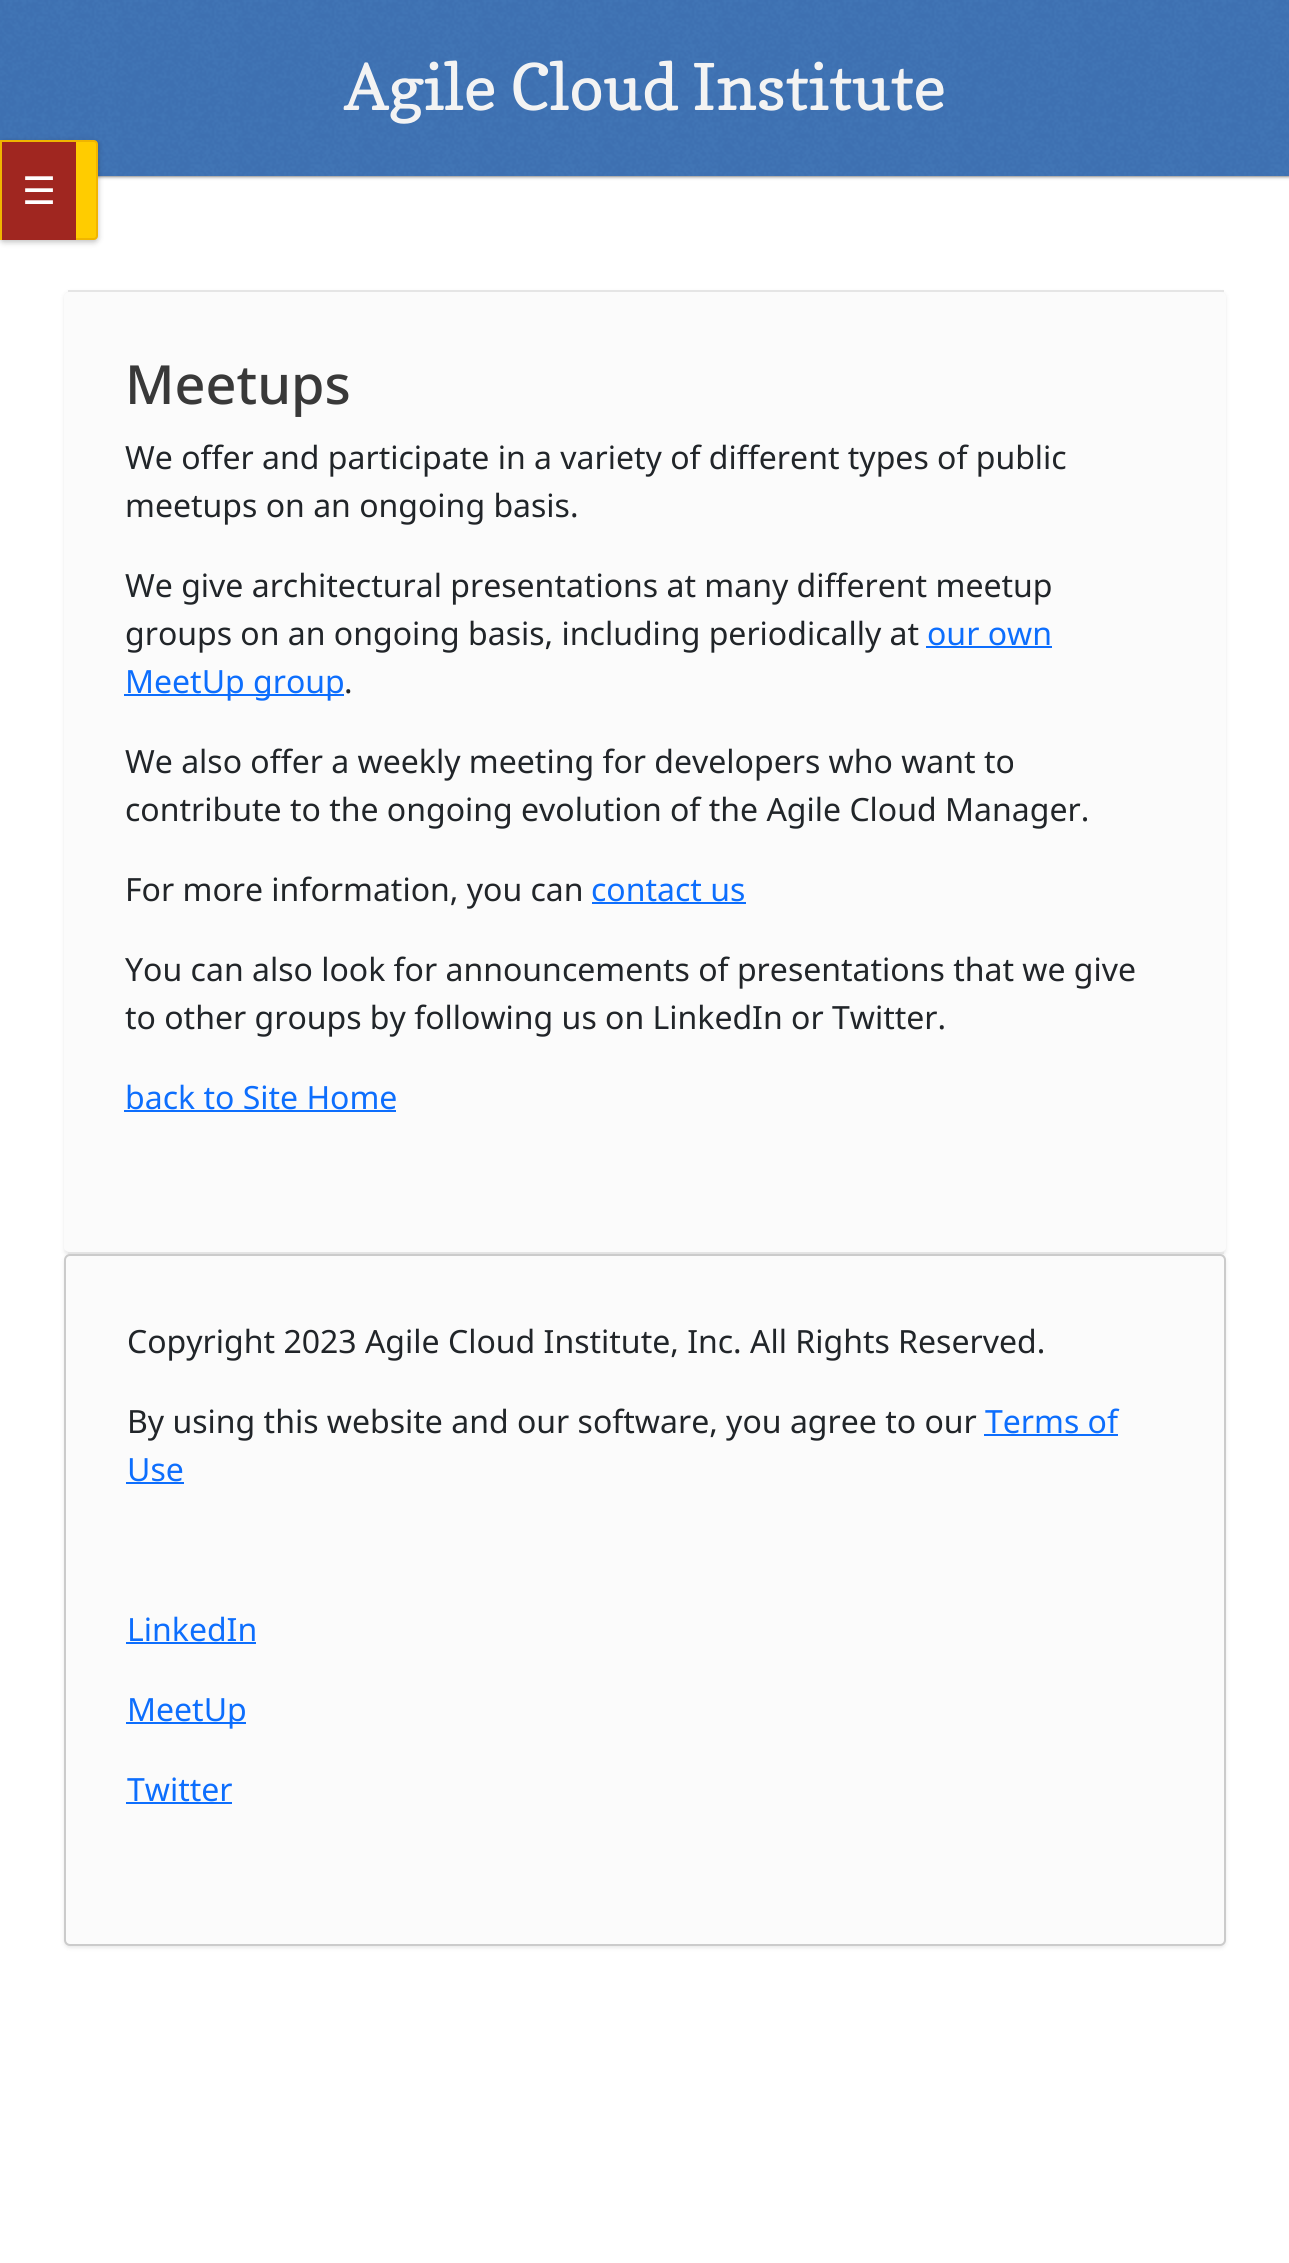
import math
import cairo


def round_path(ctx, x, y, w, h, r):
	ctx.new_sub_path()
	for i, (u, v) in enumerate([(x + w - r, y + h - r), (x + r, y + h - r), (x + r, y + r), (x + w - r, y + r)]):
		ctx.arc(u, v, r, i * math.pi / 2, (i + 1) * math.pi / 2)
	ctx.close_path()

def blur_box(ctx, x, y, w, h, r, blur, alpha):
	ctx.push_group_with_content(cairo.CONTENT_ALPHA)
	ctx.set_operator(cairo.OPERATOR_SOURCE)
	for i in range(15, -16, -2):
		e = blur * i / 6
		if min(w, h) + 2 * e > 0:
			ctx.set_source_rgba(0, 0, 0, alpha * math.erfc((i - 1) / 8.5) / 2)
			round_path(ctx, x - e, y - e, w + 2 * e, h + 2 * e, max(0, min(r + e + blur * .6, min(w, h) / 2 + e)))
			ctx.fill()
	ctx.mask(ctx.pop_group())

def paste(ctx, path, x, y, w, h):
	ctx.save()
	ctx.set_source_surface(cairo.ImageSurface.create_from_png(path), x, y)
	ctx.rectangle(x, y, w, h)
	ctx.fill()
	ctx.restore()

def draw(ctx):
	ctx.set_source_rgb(1, 1, 1)
	ctx.paint()
	ctx.set_source_rgb(0, 0, 0)
	blur_box(ctx, 2, 0, 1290, 176, 0, 2, 0.75)
	paste(ctx, 'media/1.png', 0, 0, 1289, 176)
	ctx.select_font_face('Copse')
	ctx.set_font_size(64)
	ctx.set_source_rgb(0.953, 0.953, 0.953)
	ctx.move_to(344, 110)
	ctx.show_text('Agile Cloud Institute')
	ctx.set_source_rgb(0, 0, 0)
	blur_box(ctx, 0, 142, 98, 100, 4, 3, 0.25)
	ctx.set_source_rgb(1, 0.8, 0)
	ctx.new_path()
	ctx.move_to(1, 141)
	ctx.line_to(94, 141)
	ctx.curve_to(95.5, 141, 97, 142.5, 97, 144)
	ctx.line_to(97, 236)
	ctx.curve_to(97, 237.5, 95.5, 239, 94, 239)
	ctx.line_to(1, 239)
	ctx.close_path()
	ctx.fill_preserve()
	ctx.set_source_rgb(0.941, 0.71, 0)
	ctx.stroke()
	ctx.set_source_rgb(0.627, 0.149, 0.125)
	ctx.rectangle(2, 142, 74, 98)
	ctx.fill()
	ctx.select_font_face('DejaVu Sans')
	ctx.set_font_size(38)
	ctx.set_source_rgb(1, 1, 1)
	ctx.move_to(22, 204)
	ctx.show_text('☰')
	ctx.set_source_rgb(0, 0, 0)
	blur_box(ctx, 64, 292, 1162, 964, 6, 2, 0.09)
	ctx.set_source_rgb(0.984, 0.984, 0.984)
	ctx.new_path()
	ctx.move_to(70, 292)
	ctx.line_to(1220, 292)
	ctx.curve_to(1223, 292, 1226, 294, 1226, 296)
	ctx.line_to(1226, 1248)
	ctx.curve_to(1226, 1250, 1223, 1252, 1220, 1252)
	ctx.line_to(70, 1252)
	ctx.curve_to(67, 1252, 64, 1250, 64, 1248)
	ctx.line_to(64, 296)
	ctx.curve_to(64, 294, 67, 292, 70, 292)
	ctx.close_path()
	ctx.fill()
	ctx.set_source_rgb(0.898, 0.898, 0.898)
	ctx.rectangle(68, 290, 1156, 2)
	ctx.fill()
	ctx.rectangle(68, 1252, 1156, 2)
	ctx.fill()
	ctx.select_font_face('Noto Sans Medium')
	ctx.set_font_size(54)
	ctx.set_source_rgb(0.224, 0.224, 0.224)
	ctx.move_to(125, 404)
	ctx.show_text('Meetups')
	ctx.select_font_face('Noto Sans')
	ctx.set_font_size(32)
	ctx.set_source_rgb(0.129, 0.145, 0.161)
	for x, y, s in [
		(125, 469, 'We offer and participate in a variety of different types of public'),
		(125, 517, 'meetups on an ongoing basis.'),
		(125, 597, 'We give architectural presentations at many different meetup'),
		(125, 645, 'groups on an ongoing basis, including periodically at'),
	]:
		ctx.move_to(x, y)
		ctx.show_text(s)
	ctx.set_source_rgb(0.051, 0.431, 0.992)
	ctx.move_to(927, 645)
	ctx.show_text('our own')
	ctx.rectangle(926, 646, 126, 2)
	ctx.fill()
	ctx.rectangle(124, 694, 220, 2)
	ctx.fill()
	ctx.move_to(125, 693)
	ctx.show_text('MeetUp group')
	ctx.set_source_rgb(0.129, 0.145, 0.161)
	for x, y, s in [
		(344, 693, '.'),
		(125, 773, 'We also offer a weekly meeting for developers who want to'),
		(125, 821, 'contribute to the ongoing evolution of the Agile Cloud Manager.'),
		(125, 901, 'For more information, you can'),
	]:
		ctx.move_to(x, y)
		ctx.show_text(s)
	ctx.set_source_rgb(0.051, 0.431, 0.992)
	ctx.move_to(591, 901)
	ctx.show_text('contact us')
	ctx.rectangle(592, 902, 154, 2)
	ctx.fill()
	ctx.set_source_rgb(0.129, 0.145, 0.161)
	ctx.move_to(125, 981)
	ctx.show_text('You can also look for announcements of presentations that we give')
	ctx.move_to(125, 1029)
	ctx.show_text('to other groups by following us on LinkedIn or Twitter.')
	ctx.set_source_rgb(0.051, 0.431, 0.992)
	ctx.move_to(125, 1109)
	ctx.show_text('back to Site Home')
	ctx.rectangle(124, 1110, 272, 2)
	ctx.fill()
	ctx.set_source_rgb(0, 0, 0)
	blur_box(ctx, 64, 1256, 1162, 692, 6, 2, 0.09)
	ctx.set_source_rgb(0.984, 0.984, 0.984)
	round_path(ctx, 65, 1255, 1160, 690, 5)
	ctx.fill_preserve()
	ctx.set_source_rgb(0.796, 0.796, 0.796)
	ctx.stroke()
	ctx.set_source_rgb(0.129, 0.145, 0.161)
	ctx.move_to(127, 1353)
	ctx.show_text('Copyright 2023 Agile Cloud Institute, Inc. All Rights Reserved.')
	ctx.move_to(127, 1433)
	ctx.show_text('By using this website and our software, you agree to our')
	ctx.set_source_rgb(0.051, 0.431, 0.992)
	ctx.move_to(985, 1433)
	ctx.show_text('Terms of')
	ctx.rectangle(984, 1434, 134, 2)
	ctx.fill()
	ctx.move_to(127, 1481)
	ctx.show_text('Use')
	ctx.rectangle(126, 1482, 58, 2)
	ctx.fill()
	ctx.move_to(127, 1641)
	ctx.show_text('LinkedIn')
	ctx.rectangle(126, 1642, 130, 2)
	ctx.fill()
	ctx.rectangle(126, 1722, 120, 2)
	ctx.fill()
	ctx.move_to(127, 1721)
	ctx.show_text('MeetUp')
	ctx.move_to(127, 1801)
	ctx.show_text('Twitter')
	ctx.rectangle(126, 1802, 106, 2)
	ctx.fill()


surface = cairo.ImageSurface(cairo.FORMAT_RGB24, 1289, 2263)
ctx = cairo.Context(surface)
options = cairo.FontOptions()
options.set_hint_metrics(cairo.HINT_METRICS_OFF)
options.set_hint_style(cairo.HINT_STYLE_NONE)
ctx.set_font_options(options)
ctx.set_miter_limit(4)
draw(ctx)
surface.write_to_png('image.png')
